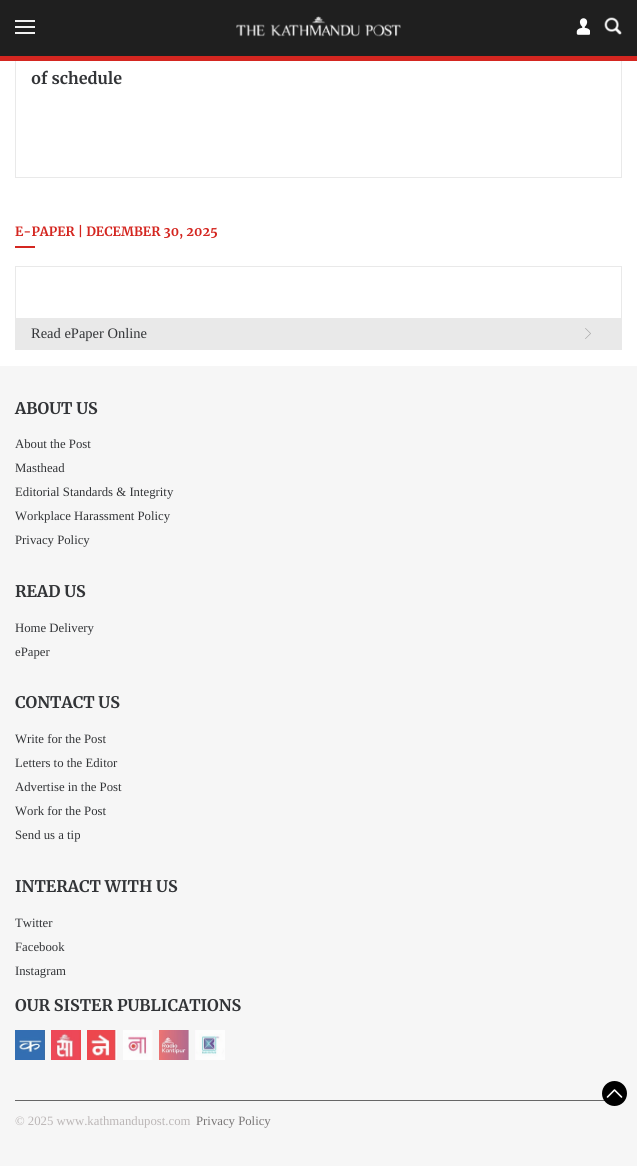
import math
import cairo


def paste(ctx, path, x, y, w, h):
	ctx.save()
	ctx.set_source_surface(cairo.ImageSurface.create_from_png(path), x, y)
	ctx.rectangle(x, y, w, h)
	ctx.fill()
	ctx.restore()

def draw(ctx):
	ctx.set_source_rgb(1, 1, 1)
	ctx.paint()
	ctx.rectangle(15.5, -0.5, 606, 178)
	ctx.set_source_rgb(0.914, 0.914, 0.914)
	ctx.set_line_width(1)
	ctx.stroke()
	ctx.set_source_rgb(0.122, 0.122, 0.122)
	ctx.rectangle(0, 0, 637, 56)
	ctx.fill()
	ctx.set_source_rgb(0.941, 0.941, 0.941)
	ctx.rectangle(15, 20, 20, 2)
	ctx.rectangle(15, 26, 20, 2)
	ctx.rectangle(15, 32, 20, 2)
	ctx.fill()
	paste(ctx, 'media/1.png', 576, 18, 14, 17)
	paste(ctx, 'media/2.png', 604, 17, 18, 18)
	paste(ctx, 'media/3.png', 236, 16, 165, 21)
	ctx.set_source_rgb(0.831, 0.149, 0.125)
	ctx.rectangle(0, 56, 637, 5)
	ctx.fill()
	ctx.select_font_face('Merriweather', cairo.FONT_SLANT_NORMAL, cairo.FONT_WEIGHT_BOLD)
	ctx.set_font_size(16)
	ctx.set_source_rgb(0.196, 0.204, 0.216)
	ctx.move_to(31, 84)
	ctx.show_text('of schedule')
	ctx.set_font_size(12.75)
	ctx.set_source_rgb(0.831, 0.149, 0.125)
	ctx.move_to(15, 236)
	ctx.show_text('E-PAPER | DECEMBER 30, 2025')
	ctx.rectangle(15, 246, 20, 2)
	ctx.fill()
	ctx.rectangle(15.5, 266.5, 606, 83)
	ctx.set_source_rgb(0.914, 0.914, 0.914)
	ctx.stroke()
	ctx.rectangle(16, 318, 605, 31)
	ctx.fill()
	paste(ctx, 'media/4.png', 585, 328, 6, 11)
	ctx.select_font_face('Liberation Serif')
	ctx.set_font_size(14.5)
	ctx.set_source_rgb(0.196, 0.204, 0.216)
	ctx.move_to(31, 338)
	ctx.show_text('Read ePaper Online')
	ctx.set_source_rgb(0.961, 0.961, 0.961)
	ctx.rectangle(0, 366, 637, 800)
	ctx.fill()
	ctx.select_font_face('Merriweather', cairo.FONT_SLANT_NORMAL, cairo.FONT_WEIGHT_BOLD)
	ctx.set_font_size(16)
	ctx.set_source_rgb(0.196, 0.204, 0.216)
	ctx.move_to(15, 414)
	ctx.show_text('ABOUT US')
	ctx.select_font_face('Liberation Serif')
	ctx.set_font_size(12.75)
	for x, y, s in [
		(15, 448, 'About the Post'),
		(15, 472, 'Masthead'),
		(15, 496, 'Editorial Standards & Integrity'),
		(15, 520, 'Workplace Harassment Policy'),
		(15, 544, 'Privacy Policy'),
	]:
		ctx.move_to(x, y)
		ctx.show_text(s)
	ctx.select_font_face('Merriweather', cairo.FONT_SLANT_NORMAL, cairo.FONT_WEIGHT_BOLD)
	ctx.set_font_size(16)
	ctx.move_to(15, 597)
	ctx.show_text('READ US')
	ctx.select_font_face('Liberation Serif')
	ctx.set_font_size(12.75)
	ctx.move_to(15, 632)
	ctx.show_text('Home Delivery')
	ctx.move_to(15, 656)
	ctx.show_text('ePaper')
	ctx.select_font_face('Merriweather', cairo.FONT_SLANT_NORMAL, cairo.FONT_WEIGHT_BOLD)
	ctx.set_font_size(16)
	ctx.move_to(15, 708)
	ctx.show_text('CONTACT US')
	ctx.select_font_face('Liberation Serif')
	ctx.set_font_size(12.75)
	for x, y, s in [
		(15, 743, 'Write for the Post'),
		(15, 767, 'Letters to the Editor'),
		(15, 791, 'Advertise in the Post'),
		(15, 815, 'Work for the Post'),
		(15, 839, 'Send us a tip'),
	]:
		ctx.move_to(x, y)
		ctx.show_text(s)
	ctx.select_font_face('Merriweather', cairo.FONT_SLANT_NORMAL, cairo.FONT_WEIGHT_BOLD)
	ctx.set_font_size(16)
	ctx.move_to(15, 892)
	ctx.show_text('INTERACT WITH US')
	ctx.select_font_face('Liberation Serif')
	ctx.set_font_size(12.75)
	for x, y, s in [
		(15, 927, 'Twitter'),
		(15, 951, 'Facebook'),
		(15, 975, 'Instagram'),
	]:
		ctx.move_to(x, y)
		ctx.show_text(s)
	ctx.select_font_face('Merriweather', cairo.FONT_SLANT_NORMAL, cairo.FONT_WEIGHT_BOLD)
	ctx.set_font_size(16)
	ctx.move_to(15, 1011)
	ctx.show_text('OUR SISTER PUBLICATIONS')
	paste(ctx, 'media/5.png', 15, 1030, 30, 30)
	paste(ctx, 'media/6.png', 51, 1030, 30, 30)
	paste(ctx, 'media/7.png', 87, 1030, 30, 30)
	paste(ctx, 'media/8.png', 123, 1030, 30, 30)
	paste(ctx, 'media/9.png', 159, 1030, 30, 30)
	paste(ctx, 'media/10.png', 195, 1030, 30, 30)
	ctx.set_source_rgb(0.4, 0.4, 0.4)
	ctx.rectangle(15, 1100, 590, 1)
	ctx.fill()
	ctx.select_font_face('Liberation Serif')
	ctx.set_font_size(12.75)
	ctx.set_source_rgb(0.733, 0.714, 0.714)
	ctx.move_to(15, 1125)
	ctx.show_text('© 2025 www.kathmandupost.com')
	ctx.set_source_rgb(0.475, 0.463, 0.463)
	ctx.move_to(196, 1125)
	ctx.show_text('Privacy Policy')
	ctx.set_source_rgb(0, 0, 0)
	ctx.new_path()
	ctx.arc(614.5, 1093.5, 12.5, 0, 2 * math.pi)
	ctx.fill()
	ctx.new_path()
	ctx.move_to(614.5, 1090)
	ctx.line_to(621.5, 1097)
	ctx.move_to(607.5, 1097)
	ctx.line_to(614.5, 1090)
	ctx.set_source_rgb(1, 1, 1)
	ctx.set_line_width(1.6)
	ctx.set_line_cap(cairo.LINE_CAP_ROUND)
	ctx.set_line_join(cairo.LINE_JOIN_ROUND)
	ctx.stroke()


surface = cairo.ImageSurface(cairo.FORMAT_RGB24, 637, 1166)
ctx = cairo.Context(surface)
options = cairo.FontOptions()
options.set_hint_metrics(cairo.HINT_METRICS_OFF)
options.set_hint_style(cairo.HINT_STYLE_NONE)
ctx.set_font_options(options)
ctx.set_miter_limit(4)
draw(ctx)
surface.write_to_png('image.png')
